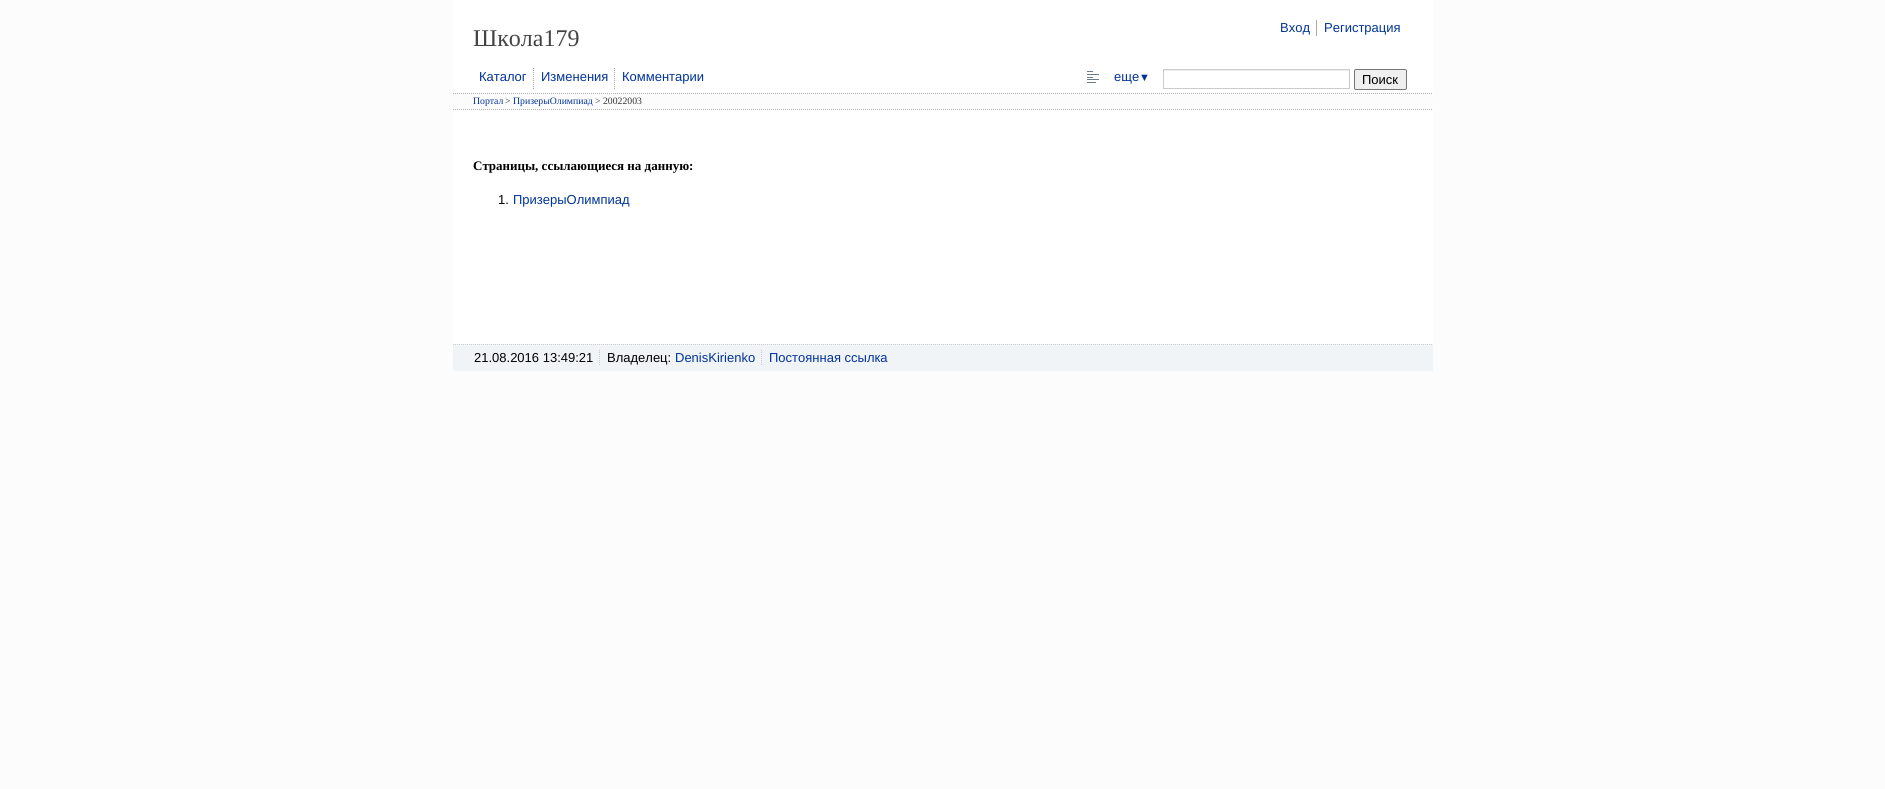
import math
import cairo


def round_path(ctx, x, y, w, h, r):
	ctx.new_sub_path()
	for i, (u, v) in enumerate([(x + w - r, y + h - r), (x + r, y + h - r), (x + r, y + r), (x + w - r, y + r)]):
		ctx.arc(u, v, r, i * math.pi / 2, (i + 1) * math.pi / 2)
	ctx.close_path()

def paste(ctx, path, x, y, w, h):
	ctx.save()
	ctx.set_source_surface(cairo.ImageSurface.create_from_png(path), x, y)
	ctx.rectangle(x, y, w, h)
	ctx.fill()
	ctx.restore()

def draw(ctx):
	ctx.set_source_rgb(0.988, 0.988, 0.988)
	ctx.paint()
	ctx.set_source_rgb(1, 1, 1)
	ctx.rectangle(453, 0, 980, 93)
	ctx.fill()
	ctx.select_font_face('Liberation Serif')
	ctx.set_font_size(24)
	ctx.set_source_rgb(0.267, 0.267, 0.267)
	ctx.move_to(473, 46)
	ctx.show_text('Школа179')
	ctx.select_font_face('Liberation Sans')
	ctx.set_font_size(13)
	ctx.set_source_rgb(0, 0.2, 0.6)
	ctx.move_to(1280, 32)
	ctx.show_text('Вход')
	ctx.set_source_rgb(0.667, 0.667, 0.667)
	ctx.rectangle(1316, 20, 1, 16)
	ctx.fill()
	ctx.set_source_rgb(0, 0.2, 0.6)
	ctx.move_to(1324, 32)
	ctx.show_text('Регистрация')
	ctx.move_to(479, 81)
	ctx.show_text('Каталог')
	ctx.new_path()
	ctx.move_to(533.5, 68)
	ctx.line_to(533.5, 89)
	ctx.set_source_rgb(0.667, 0.667, 0.667)
	ctx.set_line_width(1)
	ctx.set_dash([1, 1])
	ctx.stroke()
	ctx.set_source_rgb(0, 0.2, 0.6)
	ctx.move_to(541, 81)
	ctx.show_text('Изменения')
	ctx.new_path()
	ctx.move_to(614.5, 68)
	ctx.line_to(614.5, 89)
	ctx.set_source_rgb(0.667, 0.667, 0.667)
	ctx.stroke()
	ctx.set_source_rgb(0, 0.2, 0.6)
	ctx.move_to(622, 81)
	ctx.show_text('Комментарии')
	paste(ctx, 'media/1.png', 1087, 71, 12, 12)
	ctx.move_to(1114, 81)
	ctx.show_text('еще')
	ctx.set_font_size(11)
	ctx.move_to(1139, 81)
	ctx.show_text('▼')
	ctx.set_source_rgb(0.925, 0.925, 0.925)
	ctx.rectangle(1164, 70, 185, 1)
	ctx.fill()
	ctx.rectangle(1163.5, 69.5, 186, 19)
	ctx.set_source_rgb(0.8, 0.8, 0.8)
	ctx.set_dash([])
	ctx.stroke()
	ctx.set_source_rgb(0.937, 0.937, 0.937)
	round_path(ctx, 1354.5, 69.5, 52, 20, 1.5)
	ctx.fill_preserve()
	ctx.set_source_rgb(0.463, 0.463, 0.463)
	ctx.stroke()
	ctx.set_font_size(13)
	ctx.set_source_rgb(0, 0, 0)
	ctx.move_to(1362, 84)
	ctx.show_text('Поиск')
	ctx.new_path()
	ctx.move_to(453, 93.5)
	ctx.line_to(1433, 93.5)
	ctx.set_source_rgb(0.698, 0.69, 0.69)
	ctx.set_dash([1, 1])
	ctx.stroke()
	ctx.new_path()
	ctx.move_to(453, 109.5)
	ctx.line_to(1433, 109.5)
	ctx.stroke()
	ctx.select_font_face('Liberation Serif')
	ctx.set_font_size(9.75)
	ctx.set_source_rgb(0, 0.2, 0.6)
	ctx.move_to(473, 104)
	ctx.show_text('Портал')
	ctx.set_source_rgb(0.2, 0.2, 0.2)
	ctx.move_to(505, 104)
	ctx.show_text('>')
	ctx.set_source_rgb(0, 0.2, 0.6)
	ctx.move_to(513, 104)
	ctx.show_text('ПризерыОлимпиад')
	ctx.set_source_rgb(0.2, 0.2, 0.2)
	ctx.move_to(595, 104)
	ctx.show_text('> 20022003')
	ctx.set_source_rgb(1, 1, 1)
	ctx.rectangle(453, 110, 980, 234)
	ctx.fill()
	ctx.select_font_face('Liberation Serif', cairo.FONT_SLANT_NORMAL, cairo.FONT_WEIGHT_BOLD)
	ctx.set_font_size(13)
	ctx.set_source_rgb(0, 0, 0)
	ctx.move_to(473, 170)
	ctx.show_text('Страницы, ссылающиеся на данную:')
	ctx.select_font_face('Liberation Sans')
	ctx.move_to(498, 204)
	ctx.show_text('1.')
	ctx.set_source_rgb(0, 0.2, 0.6)
	ctx.move_to(513, 204)
	ctx.show_text('ПризерыОлимпиад')
	ctx.set_source_rgb(0.941, 0.957, 0.961)
	ctx.rectangle(453, 344, 980, 27)
	ctx.fill()
	ctx.new_path()
	ctx.move_to(453, 344.5)
	ctx.line_to(1433, 344.5)
	ctx.set_source_rgb(0.8, 0.8, 0.8)
	ctx.stroke()
	ctx.set_source_rgb(0, 0, 0)
	ctx.move_to(474, 362)
	ctx.show_text('21.08.2016 13:49:21')
	ctx.new_path()
	ctx.move_to(599.5, 350)
	ctx.line_to(599.5, 366)
	ctx.set_source_rgb(0.8, 0.8, 0.8)
	ctx.stroke()
	ctx.set_source_rgb(0, 0, 0)
	ctx.move_to(607, 362)
	ctx.show_text('Владелец:')
	ctx.set_source_rgb(0, 0.2, 0.6)
	ctx.move_to(675, 362)
	ctx.show_text('DenisKirienko')
	ctx.new_path()
	ctx.move_to(761.5, 350)
	ctx.line_to(761.5, 366)
	ctx.set_source_rgb(0.8, 0.8, 0.8)
	ctx.stroke()
	ctx.set_source_rgb(0, 0.2, 0.6)
	ctx.move_to(769, 362)
	ctx.show_text('Постоянная ссылка')


surface = cairo.ImageSurface(cairo.FORMAT_RGB24, 1885, 789)
ctx = cairo.Context(surface)
options = cairo.FontOptions()
options.set_hint_metrics(cairo.HINT_METRICS_OFF)
options.set_hint_style(cairo.HINT_STYLE_NONE)
ctx.set_font_options(options)
ctx.set_miter_limit(4)
draw(ctx)
surface.write_to_png('image.png')
